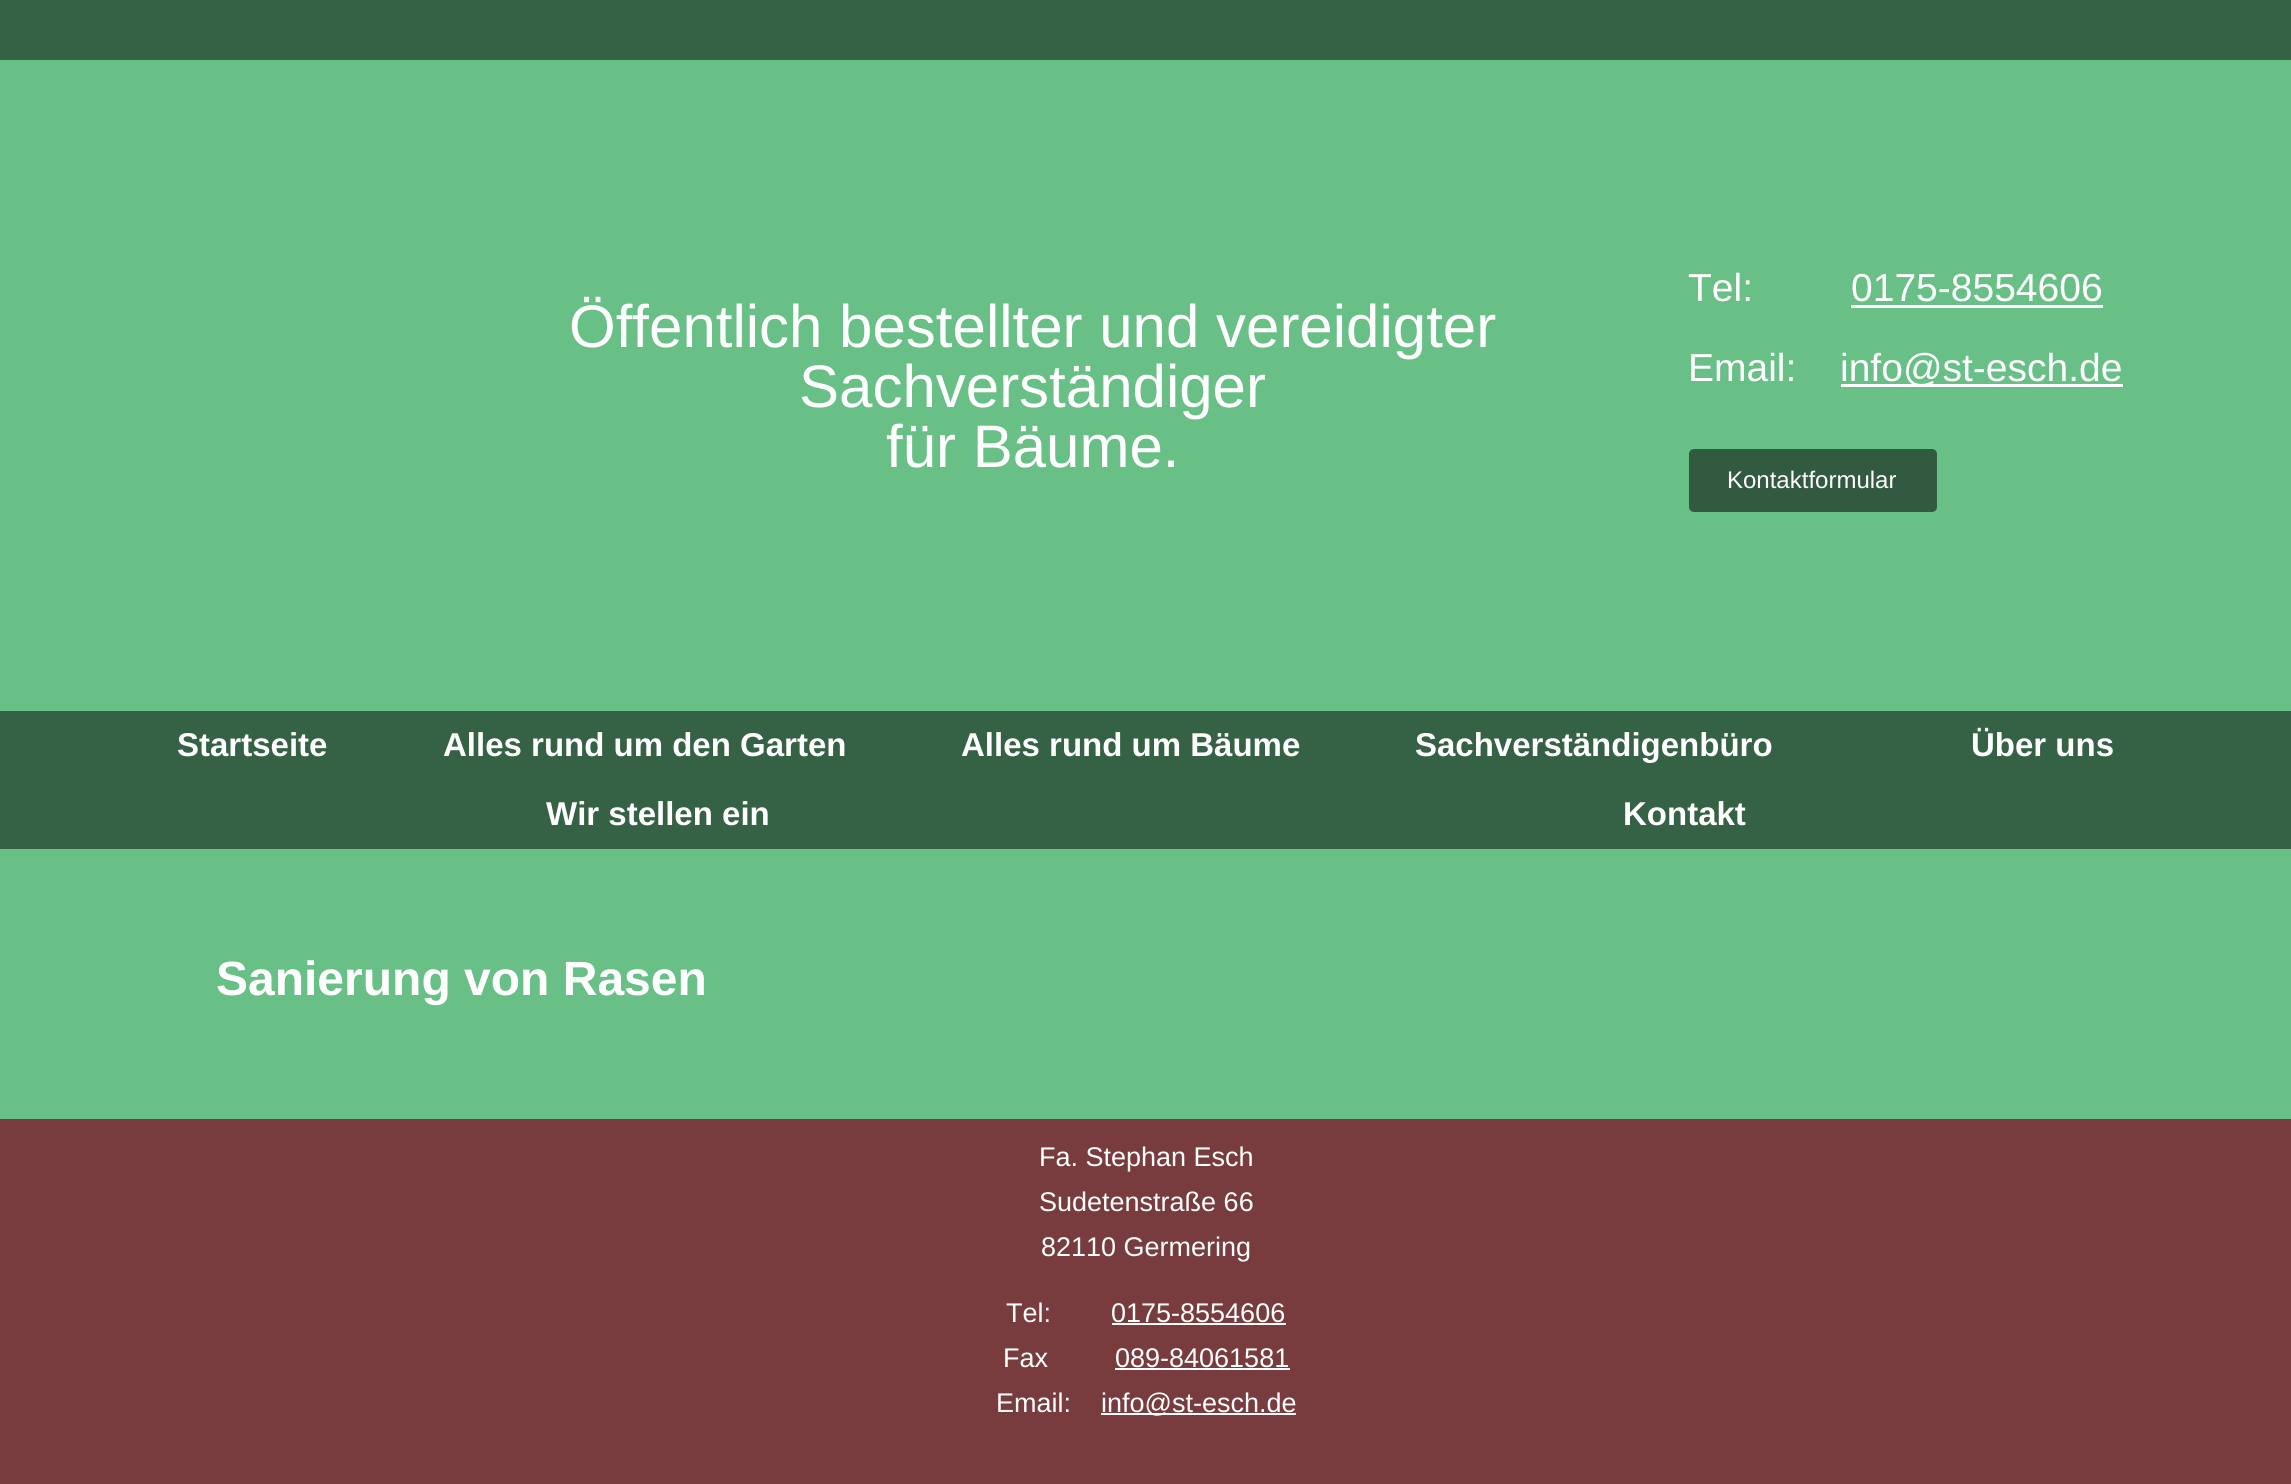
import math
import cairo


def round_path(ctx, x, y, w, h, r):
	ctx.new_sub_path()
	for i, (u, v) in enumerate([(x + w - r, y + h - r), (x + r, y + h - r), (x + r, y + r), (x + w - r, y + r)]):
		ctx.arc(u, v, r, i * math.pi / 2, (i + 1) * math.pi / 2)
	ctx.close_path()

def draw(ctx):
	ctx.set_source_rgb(0.208, 0.38, 0.271)
	ctx.paint()
	ctx.set_source_rgb(0.412, 0.753, 0.529)
	ctx.rectangle(0, 60, 2291, 651)
	ctx.fill()
	ctx.select_font_face('Liberation Sans')
	ctx.set_font_size(60)
	ctx.set_source_rgb(1, 1, 1)
	for x, y, s in [
		(569, 347, 'Öffentlich bestellter und vereidigter'),
		(799, 407, 'Sachverständiger'),
		(886, 467, 'für Bäume.'),
	]:
		ctx.move_to(x, y)
		ctx.show_text(s)
	ctx.set_font_size(39)
	ctx.move_to(1688, 301)
	ctx.show_text('Tel:')
	ctx.move_to(1851, 301)
	ctx.show_text('0175-8554606')
	ctx.rectangle(1851, 305, 252, 3)
	ctx.fill()
	ctx.move_to(1688, 381)
	ctx.show_text('Email:')
	ctx.rectangle(1841, 384, 282, 3)
	ctx.fill()
	ctx.move_to(1840, 381)
	ctx.show_text('info@st-esch.de')
	ctx.set_source_rgb(0.196, 0.353, 0.251)
	round_path(ctx, 1689, 449, 248, 63, 5)
	ctx.fill()
	ctx.set_font_size(24)
	ctx.set_source_rgb(1, 1, 1)
	ctx.move_to(1727, 488)
	ctx.show_text('Kontaktformular')
	ctx.select_font_face('Liberation Sans', cairo.FONT_SLANT_NORMAL, cairo.FONT_WEIGHT_BOLD)
	ctx.set_font_size(33)
	for x, y, s in [
		(177, 756, 'Startseite'),
		(443, 756, 'Alles rund um den Garten'),
		(961, 756, 'Alles rund um Bäume'),
		(1415, 756, 'Sachverständigenbüro'),
		(1971, 756, 'Über uns'),
		(546, 825, 'Wir stellen ein'),
		(1623, 825, 'Kontakt'),
	]:
		ctx.move_to(x, y)
		ctx.show_text(s)
	ctx.set_source_rgb(0.412, 0.753, 0.529)
	ctx.rectangle(0, 849, 2291, 270)
	ctx.fill()
	ctx.set_font_size(48)
	ctx.set_source_rgb(1, 1, 1)
	ctx.move_to(216, 995)
	ctx.show_text('Sanierung von Rasen')
	ctx.set_source_rgb(0.475, 0.235, 0.243)
	ctx.rectangle(0, 1119, 2291, 365)
	ctx.fill()
	ctx.select_font_face('Liberation Sans')
	ctx.set_font_size(27)
	ctx.set_source_rgb(1, 1, 1)
	for x, y, s in [
		(1039, 1166, 'Fa. Stephan Esch'),
		(1039, 1211, 'Sudetenstraße 66'),
		(1041, 1256, '82110 Germering'),
		(1006, 1322, 'Tel:'),
		(1111, 1322, '0175-8554606'),
	]:
		ctx.move_to(x, y)
		ctx.show_text(s)
	ctx.rectangle(1112, 1323, 174, 2)
	ctx.fill()
	ctx.move_to(1003, 1367)
	ctx.show_text('Fax')
	ctx.move_to(1115, 1367)
	ctx.show_text('089-84061581')
	ctx.rectangle(1115, 1368, 175, 2)
	ctx.fill()
	ctx.move_to(996, 1412)
	ctx.show_text('Email:')
	ctx.rectangle(1101, 1413, 195, 2)
	ctx.fill()
	ctx.move_to(1101, 1412)
	ctx.show_text('info@st-esch.de')


surface = cairo.ImageSurface(cairo.FORMAT_RGB24, 2291, 1484)
ctx = cairo.Context(surface)
options = cairo.FontOptions()
options.set_hint_metrics(cairo.HINT_METRICS_OFF)
options.set_hint_style(cairo.HINT_STYLE_NONE)
ctx.set_font_options(options)
ctx.set_miter_limit(4)
draw(ctx)
surface.write_to_png('image.png')
